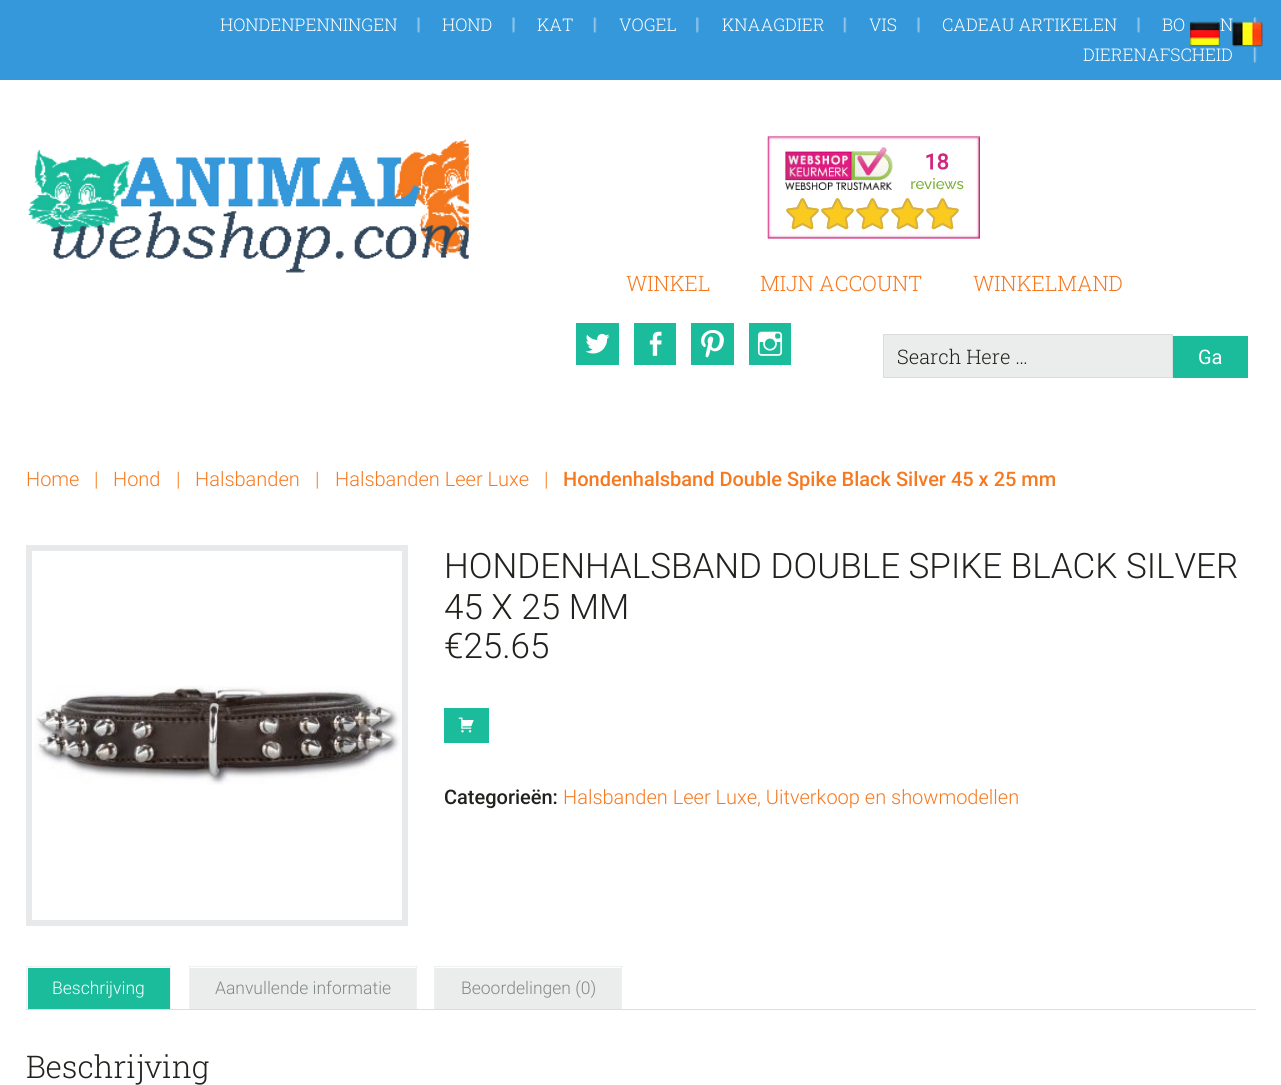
import math
import cairo


def paste(ctx, path, x, y, w, h):
	ctx.save()
	ctx.set_source_surface(cairo.ImageSurface.create_from_png(path), x, y)
	ctx.rectangle(x, y, w, h)
	ctx.fill()
	ctx.restore()

def draw(ctx):
	ctx.set_source_rgb(1, 1, 1)
	ctx.paint()
	ctx.set_source_rgb(0.204, 0.596, 0.859)
	ctx.rectangle(0, 0, 1281, 80)
	ctx.fill()
	paste(ctx, 'media/1.png', 417, 17, 3, 16)
	ctx.select_font_face('Roboto Slab Light')
	ctx.set_font_size(17.5)
	ctx.set_source_rgb(1, 1, 1)
	ctx.move_to(220, 31)
	ctx.show_text('HONDENPENNINGEN')
	paste(ctx, 'media/1.png', 512, 17, 3, 16)
	ctx.move_to(442, 31)
	ctx.show_text('HOND')
	paste(ctx, 'media/2.png', 593, 17, 4, 16)
	ctx.move_to(537, 31)
	ctx.show_text('KAT')
	paste(ctx, 'media/3.png', 696, 17, 3, 16)
	ctx.move_to(619, 31)
	ctx.show_text('VOGEL')
	paste(ctx, 'media/2.png', 843, 17, 4, 16)
	ctx.move_to(722, 31)
	ctx.show_text('KNAAGDIER')
	paste(ctx, 'media/1.png', 917, 17, 3, 16)
	ctx.move_to(869, 31)
	ctx.show_text('VIS')
	paste(ctx, 'media/1.png', 1137, 17, 3, 16)
	ctx.move_to(942, 31)
	ctx.show_text('CADEAU ARTIKELEN')
	paste(ctx, 'media/2.png', 1253, 17, 4, 16)
	ctx.move_to(1162, 31)
	ctx.show_text('BO')
	ctx.move_to(1220, 31)
	ctx.show_text('N')
	paste(ctx, 'media/2.png', 1253, 47, 4, 16)
	ctx.move_to(1083, 61)
	ctx.show_text('DIERENAFSCHEID')
	paste(ctx, 'media/4.png', 28, 139, 441, 134)
	paste(ctx, 'media/5.png', 767, 136, 213, 103)
	ctx.set_font_size(21.25)
	ctx.set_source_rgb(0.961, 0.475, 0.122)
	for x, y, s in [
		(626, 291, 'WINKEL'),
		(760, 291, 'MIJN ACCOUNT'),
		(973, 291, 'WINKELMAND'),
	]:
		ctx.move_to(x, y)
		ctx.show_text(s)
	ctx.set_source_rgb(0.102, 0.737, 0.612)
	ctx.rectangle(576, 323, 43, 42)
	ctx.fill()
	paste(ctx, 'media/6.png', 585, 333, 25, 21)
	ctx.rectangle(634, 323, 42, 42)
	ctx.fill()
	paste(ctx, 'media/7.png', 649, 331, 13, 25)
	ctx.rectangle(691, 323, 43, 42)
	ctx.fill()
	paste(ctx, 'media/8.png', 701, 330, 23, 28)
	ctx.rectangle(749, 323, 42, 42)
	ctx.fill()
	paste(ctx, 'media/9.png', 757, 331, 26, 25)
	ctx.set_source_rgb(0.918, 0.925, 0.925)
	ctx.rectangle(883.5, 334.5, 289, 43)
	ctx.fill_preserve()
	ctx.set_source_rgb(0.855, 0.867, 0.871)
	ctx.set_line_width(1)
	ctx.stroke()
	ctx.set_font_size(20)
	ctx.set_source_rgb(0.125, 0.133, 0.114)
	ctx.move_to(897, 364)
	ctx.show_text('Search Here …')
	ctx.set_source_rgb(0.102, 0.737, 0.612)
	ctx.rectangle(1173, 336, 75, 42)
	ctx.fill()
	ctx.select_font_face('Roboto')
	ctx.set_source_rgb(1, 1, 1)
	ctx.move_to(1198, 364)
	ctx.show_text('Ga')
	ctx.select_font_face('Roboto Light')
	ctx.set_source_rgb(0.961, 0.475, 0.122)
	for x, y, s in [
		(26, 486, 'Home'),
		(94, 486, '|'),
		(113, 486, 'Hond'),
		(176, 486, '|'),
		(195, 486, 'Halsbanden'),
		(315, 486, '|'),
		(335, 486, 'Halsbanden Leer Luxe'),
		(544, 486, '|'),
	]:
		ctx.move_to(x, y)
		ctx.show_text(s)
	ctx.select_font_face('Roboto Medium')
	ctx.move_to(563, 486)
	ctx.show_text('Hondenhalsband Double Spike Black Silver 45 x 25 mm')
	ctx.rectangle(29, 548, 376, 375)
	ctx.set_source_rgb(0.906, 0.914, 0.918)
	ctx.set_line_width(6)
	ctx.stroke()
	paste(ctx, 'media/10.png', 34, 685, 367, 100)
	ctx.select_font_face('Roboto Light')
	ctx.set_font_size(35)
	ctx.set_source_rgb(0.125, 0.133, 0.114)
	for x, y, s in [
		(444, 578, 'HONDENHALSBAND DOUBLE SPIKE BLACK SILVER'),
		(444, 619, '45 X 25 MM'),
		(444, 658, '€25.65'),
	]:
		ctx.move_to(x, y)
		ctx.show_text(s)
	ctx.set_source_rgb(0.102, 0.737, 0.612)
	ctx.rectangle(444, 708, 45, 35)
	ctx.fill()
	paste(ctx, 'media/11.png', 458, 717, 16, 16)
	ctx.select_font_face('Roboto Medium')
	ctx.set_font_size(20)
	ctx.set_source_rgb(0.125, 0.133, 0.114)
	ctx.move_to(444, 804)
	ctx.show_text('Categorieën:')
	ctx.select_font_face('Roboto Light')
	ctx.set_source_rgb(0.961, 0.475, 0.122)
	ctx.move_to(563, 804)
	ctx.show_text('Halsbanden Leer Luxe, Uitverkoop en showmodellen')
	ctx.set_source_rgb(0.859, 0.871, 0.871)
	ctx.rectangle(26, 1009, 1230, 1)
	ctx.fill()
	ctx.set_source_rgb(0.937, 0.941, 0.941)
	ctx.rectangle(26, 966, 145, 1)
	ctx.rectangle(170, 966, 1, 43)
	ctx.rectangle(26, 966, 1, 43)
	ctx.fill()
	ctx.set_source_rgb(0.102, 0.737, 0.612)
	ctx.rectangle(28, 968, 142, 41)
	ctx.fill()
	ctx.set_font_size(17.5)
	ctx.set_source_rgb(1, 1, 1)
	ctx.move_to(52, 994)
	ctx.show_text('Beschrijving')
	ctx.set_source_rgb(0.937, 0.941, 0.941)
	ctx.rectangle(189, 966, 229, 1)
	ctx.rectangle(416, 966, 1, 43)
	ctx.rectangle(189, 966, 1, 43)
	ctx.fill()
	ctx.set_source_rgb(0.918, 0.925, 0.925)
	ctx.rectangle(190, 968, 226, 41)
	ctx.fill()
	ctx.set_source_rgb(0.506, 0.533, 0.533)
	ctx.move_to(215, 994)
	ctx.show_text('Aanvullende informatie')
	ctx.set_source_rgb(0.937, 0.941, 0.941)
	ctx.rectangle(434, 966, 189, 1)
	ctx.rectangle(621, 966, 1, 43)
	ctx.rectangle(434, 966, 1, 43)
	ctx.fill()
	ctx.set_source_rgb(0.918, 0.925, 0.925)
	ctx.rectangle(435, 968, 186, 41)
	ctx.fill()
	ctx.set_source_rgb(0.506, 0.533, 0.533)
	ctx.move_to(461, 994)
	ctx.show_text('Beoordelingen (0)')
	ctx.select_font_face('Roboto Slab Light')
	ctx.set_font_size(31.25)
	ctx.set_source_rgb(0.125, 0.133, 0.114)
	ctx.move_to(26, 1078)
	ctx.show_text('Beschrijving')
	paste(ctx, 'media/12.png', 1190, 21, 30, 26)
	paste(ctx, 'media/13.png', 1232, 21, 31, 26)


surface = cairo.ImageSurface(cairo.FORMAT_RGB24, 1281, 1085)
ctx = cairo.Context(surface)
options = cairo.FontOptions()
options.set_hint_metrics(cairo.HINT_METRICS_OFF)
options.set_hint_style(cairo.HINT_STYLE_NONE)
ctx.set_font_options(options)
ctx.set_miter_limit(4)
draw(ctx)
surface.write_to_png('image.png')
